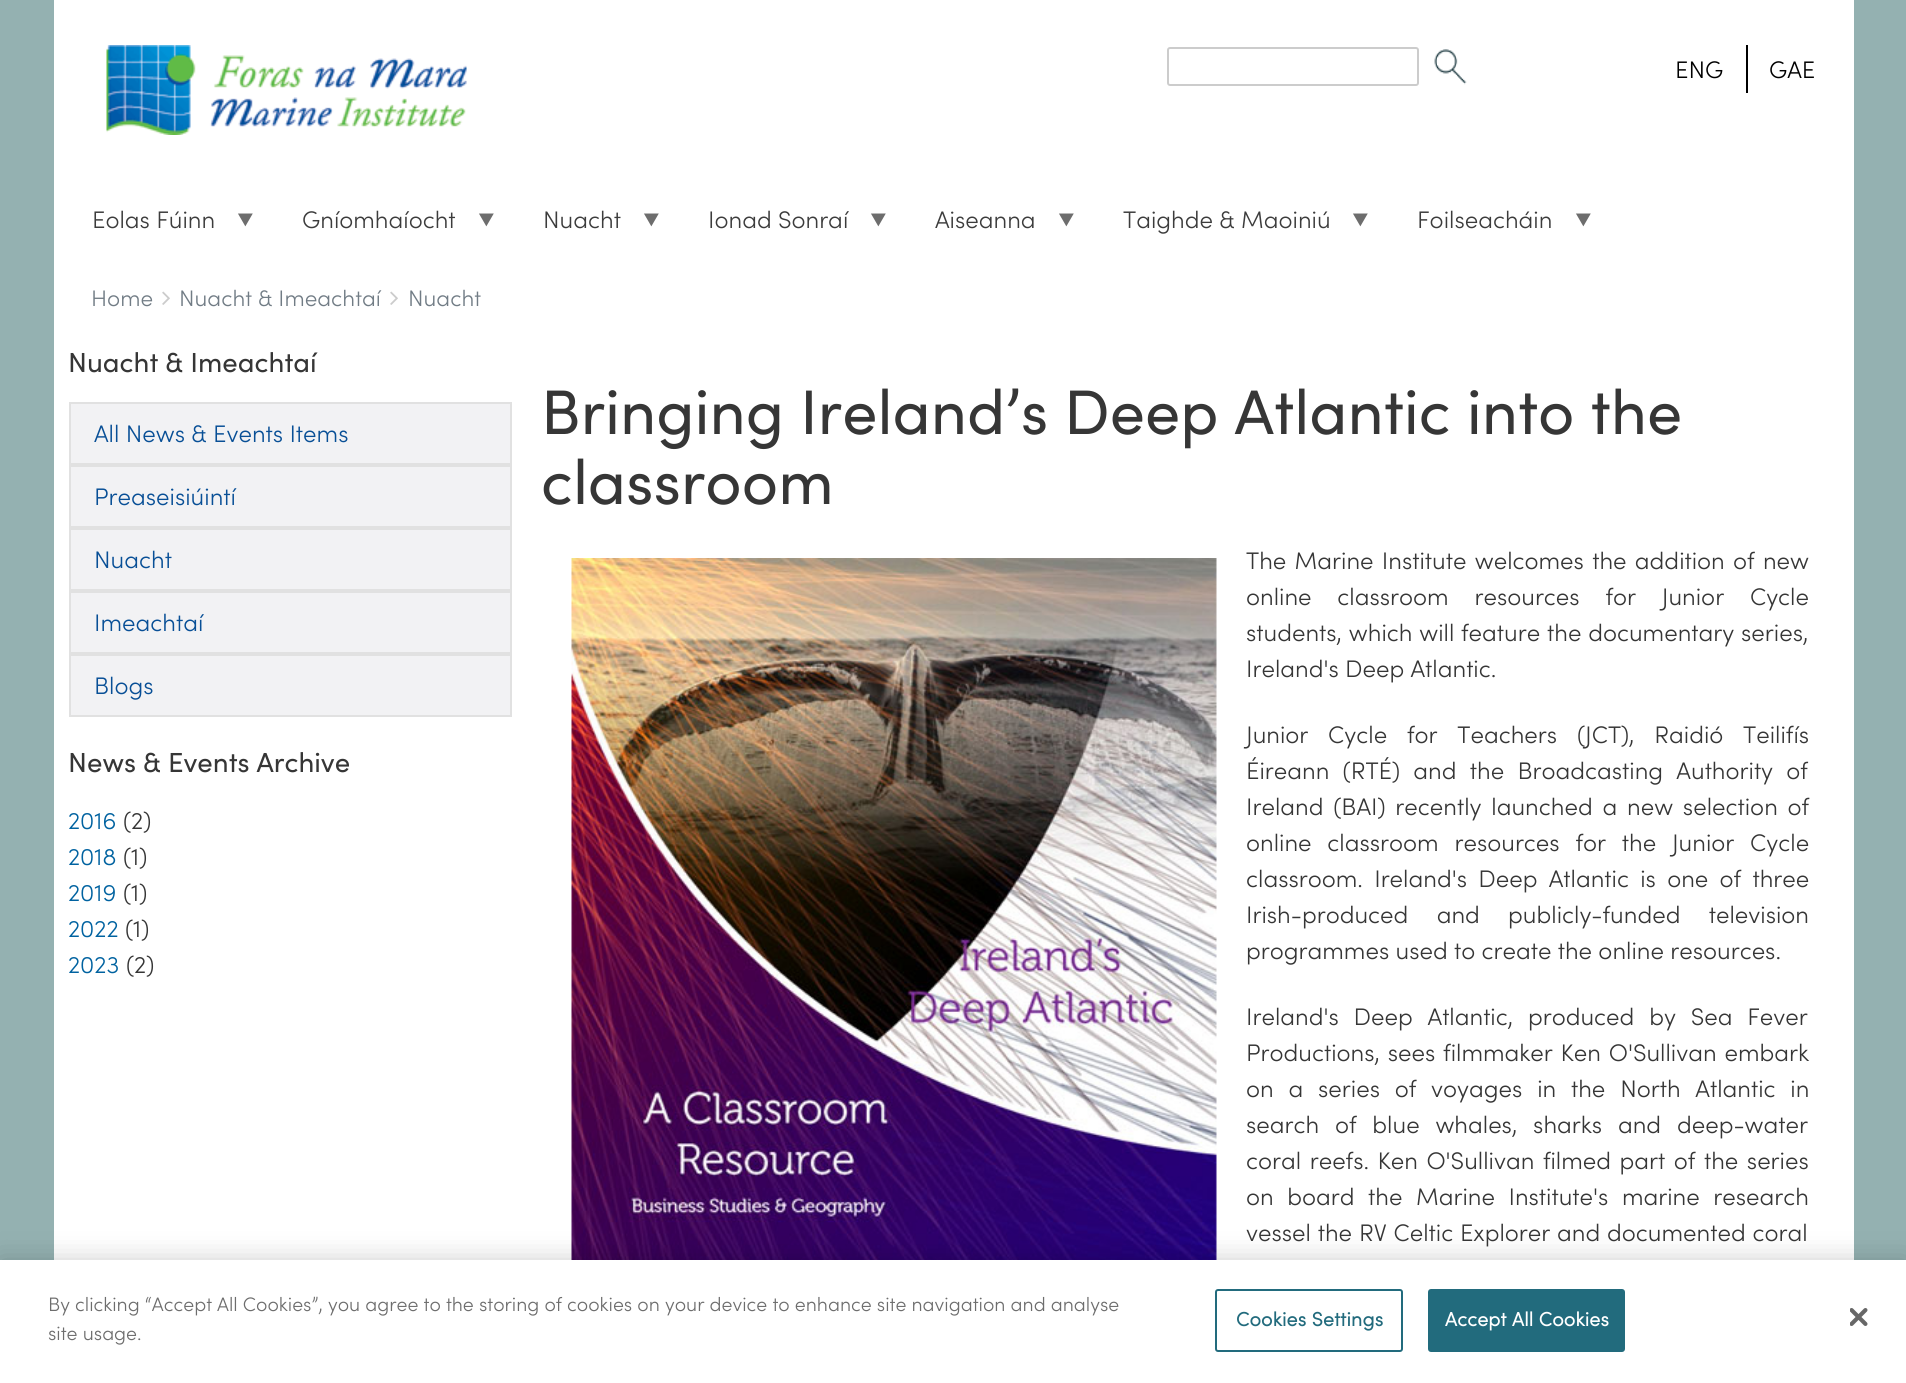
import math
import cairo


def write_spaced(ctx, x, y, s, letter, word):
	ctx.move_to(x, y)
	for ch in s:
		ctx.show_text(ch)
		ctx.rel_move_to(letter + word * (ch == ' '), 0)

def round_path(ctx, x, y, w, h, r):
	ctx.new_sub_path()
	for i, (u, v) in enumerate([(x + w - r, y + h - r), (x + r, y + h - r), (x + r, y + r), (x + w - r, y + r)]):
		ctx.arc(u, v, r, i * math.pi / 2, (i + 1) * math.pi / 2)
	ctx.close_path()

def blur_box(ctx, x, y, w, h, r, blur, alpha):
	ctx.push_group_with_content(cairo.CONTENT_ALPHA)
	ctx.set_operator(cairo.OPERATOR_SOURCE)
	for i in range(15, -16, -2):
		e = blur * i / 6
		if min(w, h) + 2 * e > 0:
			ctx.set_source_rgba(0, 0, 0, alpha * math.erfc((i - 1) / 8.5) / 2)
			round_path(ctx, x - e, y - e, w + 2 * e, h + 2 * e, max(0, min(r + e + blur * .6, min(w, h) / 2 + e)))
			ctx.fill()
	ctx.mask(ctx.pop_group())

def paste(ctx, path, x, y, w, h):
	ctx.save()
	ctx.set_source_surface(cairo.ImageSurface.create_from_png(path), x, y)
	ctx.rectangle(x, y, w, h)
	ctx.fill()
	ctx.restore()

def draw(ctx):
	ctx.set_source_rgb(0.58, 0.694, 0.694)
	ctx.paint()
	ctx.set_source_rgb(1, 1, 1)
	ctx.rectangle(54, 0, 1800, 1260)
	ctx.fill()
	paste(ctx, 'media/1.png', 106, 45, 361, 90)
	round_path(ctx, 1168, 48, 250, 37, 2)
	ctx.set_source_rgb(0.8, 0.8, 0.8)
	ctx.stroke()
	paste(ctx, 'media/2.png', 1434, 49, 33, 36)
	ctx.set_source_rgb(0, 0, 0)
	ctx.rectangle(1746, 45, 2, 48)
	ctx.fill()
	ctx.select_font_face('Sofia Light')
	ctx.set_font_size(24)
	ctx.move_to(1675, 78)
	ctx.show_text('ENG')
	ctx.move_to(1769, 78)
	ctx.show_text('GAE')
	ctx.set_source_rgb(0.235, 0.235, 0.235)
	ctx.move_to(92, 228)
	ctx.show_text('Eolas Fúinn')
	ctx.set_source_rgb(0.427, 0.427, 0.427)
	ctx.move_to(236, 228)
	ctx.show_text('▼')
	ctx.set_source_rgb(0.235, 0.235, 0.235)
	ctx.move_to(302, 228)
	ctx.show_text('Gníomhaíocht')
	ctx.set_source_rgb(0.427, 0.427, 0.427)
	ctx.move_to(477, 228)
	ctx.show_text('▼')
	ctx.set_source_rgb(0.235, 0.235, 0.235)
	ctx.move_to(543, 228)
	ctx.show_text('Nuacht')
	ctx.set_source_rgb(0.427, 0.427, 0.427)
	ctx.move_to(642, 228)
	ctx.show_text('▼')
	ctx.set_source_rgb(0.235, 0.235, 0.235)
	ctx.move_to(708, 228)
	ctx.show_text('Ionad Sonraí')
	ctx.set_source_rgb(0.427, 0.427, 0.427)
	ctx.move_to(869, 228)
	ctx.show_text('▼')
	ctx.set_source_rgb(0.235, 0.235, 0.235)
	ctx.move_to(935, 228)
	ctx.show_text('Aiseanna')
	ctx.set_source_rgb(0.427, 0.427, 0.427)
	ctx.move_to(1057, 228)
	ctx.show_text('▼')
	ctx.set_source_rgb(0.235, 0.235, 0.235)
	ctx.move_to(1123, 228)
	ctx.show_text('Taighde & Maoiniú')
	ctx.set_source_rgb(0.427, 0.427, 0.427)
	ctx.move_to(1351, 228)
	ctx.show_text('▼')
	ctx.set_source_rgb(0.235, 0.235, 0.235)
	ctx.move_to(1417, 228)
	ctx.show_text('Foilseacháin')
	ctx.set_source_rgb(0.427, 0.427, 0.427)
	ctx.move_to(1574, 228)
	ctx.show_text('▼')
	ctx.set_font_size(22.5)
	ctx.set_source_rgb(0.443, 0.486, 0.522)
	ctx.move_to(91, 306)
	ctx.show_text('Home')
	paste(ctx, 'media/3.png', 162, 291, 8, 14)
	ctx.move_to(179, 306)
	ctx.show_text('Nuacht & Imeachtaí')
	paste(ctx, 'media/3.png', 390, 291, 8, 14)
	ctx.move_to(408, 306)
	ctx.show_text('Nuacht')
	ctx.select_font_face('Sofia')
	ctx.set_font_size(27.6)
	ctx.set_source_rgb(0.212, 0.212, 0.212)
	ctx.move_to(68, 372)
	ctx.show_text('Nuacht & Imeachtaí')
	ctx.set_source_rgb(0.949, 0.949, 0.957)
	ctx.rectangle(70, 403, 441, 61)
	ctx.fill_preserve()
	ctx.set_source_rgb(0.882, 0.882, 0.882)
	ctx.stroke()
	ctx.select_font_face('Sofia Light')
	ctx.set_font_size(24)
	ctx.set_source_rgb(0.035, 0.31, 0.588)
	ctx.move_to(94, 442)
	ctx.show_text('All News & Events Items')
	ctx.set_source_rgb(0.949, 0.949, 0.957)
	ctx.rectangle(70, 466, 441, 61)
	ctx.fill_preserve()
	ctx.set_source_rgb(0.882, 0.882, 0.882)
	ctx.stroke()
	ctx.set_source_rgb(0.035, 0.31, 0.588)
	ctx.move_to(94, 505)
	ctx.show_text('Preaseisiúintí')
	ctx.set_source_rgb(0.949, 0.949, 0.957)
	ctx.rectangle(70, 529, 441, 61)
	ctx.fill_preserve()
	ctx.set_source_rgb(0.882, 0.882, 0.882)
	ctx.stroke()
	ctx.set_source_rgb(0.035, 0.31, 0.588)
	ctx.move_to(94, 568)
	ctx.show_text('Nuacht')
	ctx.set_source_rgb(0.949, 0.949, 0.957)
	ctx.rectangle(70, 592, 441, 61)
	ctx.fill_preserve()
	ctx.set_source_rgb(0.882, 0.882, 0.882)
	ctx.stroke()
	ctx.set_source_rgb(0.035, 0.31, 0.588)
	ctx.move_to(94, 631)
	ctx.show_text('Imeachtaí')
	ctx.set_source_rgb(0.949, 0.949, 0.957)
	ctx.rectangle(70, 655, 441, 61)
	ctx.fill_preserve()
	ctx.set_source_rgb(0.882, 0.882, 0.882)
	ctx.stroke()
	ctx.set_source_rgb(0.035, 0.31, 0.588)
	ctx.move_to(94, 694)
	ctx.show_text('Blogs')
	ctx.select_font_face('Sofia')
	ctx.set_font_size(27.6)
	ctx.set_source_rgb(0.212, 0.212, 0.212)
	ctx.move_to(68, 772)
	ctx.show_text('News & Events Archive')
	ctx.select_font_face('Sofia Light')
	ctx.set_font_size(24)
	ctx.set_source_rgb(0, 0.384, 0.627)
	ctx.move_to(68, 829)
	ctx.show_text('2016')
	ctx.set_source_rgb(0.212, 0.212, 0.212)
	ctx.move_to(123, 829)
	ctx.show_text('(2)')
	ctx.set_source_rgb(0, 0.384, 0.627)
	ctx.move_to(68, 865)
	ctx.show_text('2018')
	ctx.set_source_rgb(0.212, 0.212, 0.212)
	ctx.move_to(123, 865)
	ctx.show_text('(1)')
	ctx.set_source_rgb(0, 0.384, 0.627)
	ctx.move_to(68, 901)
	ctx.show_text('2019')
	ctx.set_source_rgb(0.212, 0.212, 0.212)
	ctx.move_to(123, 901)
	ctx.show_text('(1)')
	ctx.set_source_rgb(0, 0.384, 0.627)
	ctx.move_to(68, 937)
	ctx.show_text('2022')
	ctx.set_source_rgb(0.212, 0.212, 0.212)
	ctx.move_to(125, 937)
	ctx.show_text('(1)')
	ctx.set_source_rgb(0, 0.384, 0.627)
	ctx.move_to(68, 973)
	ctx.show_text('2023')
	ctx.set_source_rgb(0.212, 0.212, 0.212)
	ctx.move_to(126, 973)
	ctx.show_text('(2)')
	ctx.select_font_face('Sofia')
	ctx.set_font_size(63)
	ctx.move_to(541, 434)
	ctx.show_text('Bringing Ireland’s Deep Atlantic into the')
	ctx.move_to(541, 504)
	ctx.show_text('classroom')
	paste(ctx, 'media/4.png', 571, 558, 646, 702)
	ctx.select_font_face('Sofia Light')
	ctx.set_font_size(24)
	write_spaced(ctx, 1246, 569, 'The Marine Institute welcomes the addition of new', 0, 2)
	write_spaced(ctx, 1246, 605, 'online classroom resources for Junior Cycle', 0, 19.5)
	write_spaced(ctx, 1246, 641, 'students, which will feature the documentary series,', 0, 0.5)
	ctx.move_to(1246, 677)
	ctx.show_text('Ireland\'s Deep Atlantic.')
	write_spaced(ctx, 1246, 743, 'Junior Cycle for Teachers (JCT), Raidió Teilifís', 0, 13.5)
	write_spaced(ctx, 1246, 779, 'Éireann (RTÉ) and the Broadcasting Authority of', 0, 7)
	write_spaced(ctx, 1246, 815, 'Ireland (BAI) recently launched a new selection of', 0, 3.5)
	write_spaced(ctx, 1246, 851, 'online classroom resources for the Junior Cycle', 0, 9.5)
	write_spaced(ctx, 1246, 887, 'classroom. Ireland\'s Deep Atlantic is one of three', 0, 5)
	write_spaced(ctx, 1246, 923, 'Irish-produced and publicly-funded television', 0, 22)
	ctx.move_to(1246, 959)
	ctx.show_text('programmes used to create the online resources.')
	write_spaced(ctx, 1246, 1025, 'Ireland\'s Deep Atlantic, produced by Sea Fever', 0, 8.5)
	write_spaced(ctx, 1246, 1061, 'Productions, sees filmmaker Ken O\'Sullivan embark', 0, 1.5)
	write_spaced(ctx, 1246, 1097, 'on a series of voyages in the North Atlantic in', 0, 8.5)
	write_spaced(ctx, 1246, 1133, 'search of blue whales, sharks and deep-water', 0, 9.5)
	write_spaced(ctx, 1246, 1169, 'coral reefs. Ken O\'Sullivan filmed part of the series', 0, 2.25)
	write_spaced(ctx, 1246, 1205, 'on board the Marine Institute\'s marine research', 0, 7.25)
	write_spaced(ctx, 1246, 1241, 'vessel the RV Celtic Explorer and documented coral', 0, 0.5)
	ctx.set_source_rgb(0, 0, 0)
	blur_box(ctx, 0, 1260, 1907, 123, 0, 13.5, 0.2)
	ctx.set_source_rgb(1, 1, 1)
	ctx.rectangle(0, 1260, 1906, 123)
	ctx.fill()
	ctx.set_font_size(19.5)
	ctx.set_source_rgb(0.427, 0.427, 0.427)
	ctx.move_to(48, 1311)
	ctx.show_text('By clicking “Accept All Cookies”, you agree to the storing of cookies on your device to enhance site navigation and analyse')
	ctx.move_to(48, 1340)
	ctx.show_text('site usage.')
	round_path(ctx, 1216, 1290, 186, 61, 2)
	ctx.set_source_rgb(0.133, 0.42, 0.49)
	ctx.stroke()
	ctx.select_font_face('Sofia', cairo.FONT_SLANT_NORMAL, cairo.FONT_WEIGHT_BOLD)
	write_spaced(ctx, 1236, 1326, 'Cookies Settings', 0.25, 0)
	round_path(ctx, 1429, 1290, 195, 61, 2)
	ctx.fill_preserve()
	ctx.stroke()
	ctx.set_source_rgb(1, 1, 1)
	write_spaced(ctx, 1445, 1326, 'Accept All Cookies', 0.25, 0)
	paste(ctx, 'media/5.png', 1850, 1308, 18, 18)


surface = cairo.ImageSurface(cairo.FORMAT_RGB24, 1906, 1383)
ctx = cairo.Context(surface)
options = cairo.FontOptions()
options.set_hint_metrics(cairo.HINT_METRICS_OFF)
options.set_hint_style(cairo.HINT_STYLE_NONE)
ctx.set_font_options(options)
ctx.set_miter_limit(4)
draw(ctx)
surface.write_to_png('image.png')
